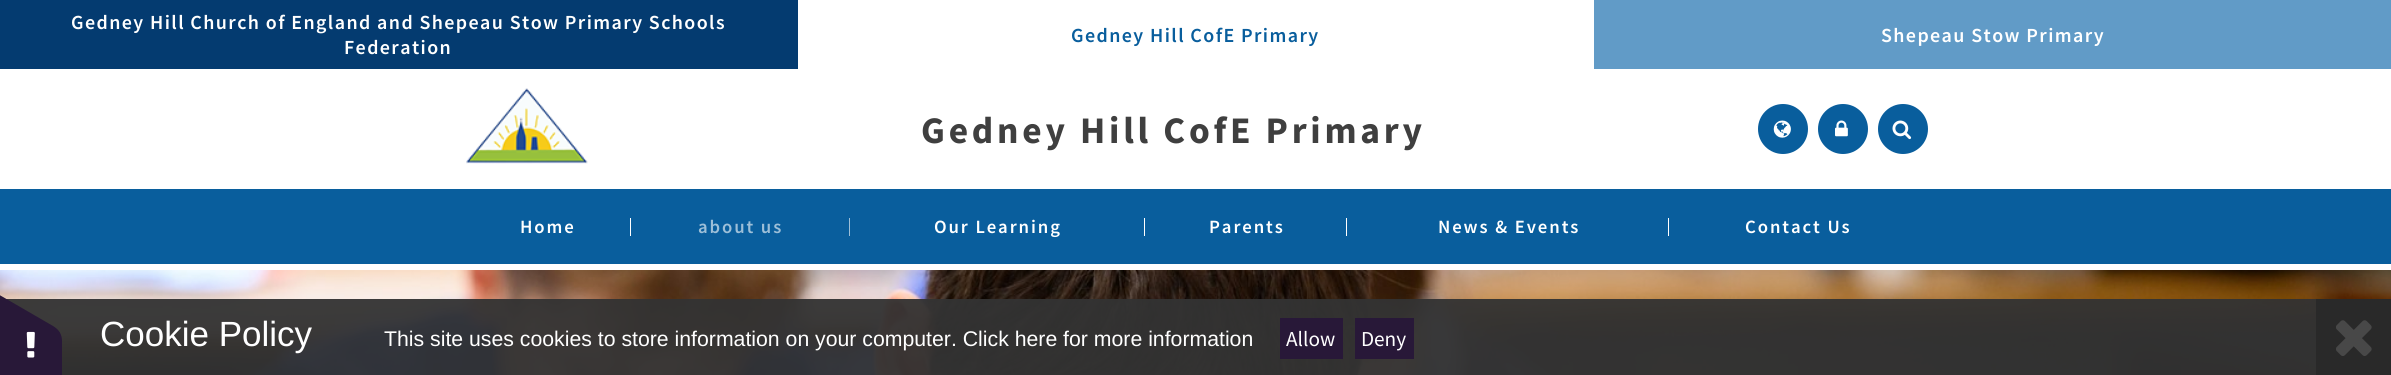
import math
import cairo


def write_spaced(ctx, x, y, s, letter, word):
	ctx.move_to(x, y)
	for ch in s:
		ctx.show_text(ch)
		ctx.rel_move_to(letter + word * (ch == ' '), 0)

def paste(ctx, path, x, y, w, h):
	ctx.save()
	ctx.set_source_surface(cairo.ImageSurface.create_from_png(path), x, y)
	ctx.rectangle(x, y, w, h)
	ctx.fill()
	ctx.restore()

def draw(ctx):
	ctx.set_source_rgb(1, 1, 1)
	ctx.paint()
	ctx.set_source_rgb(0.016, 0.231, 0.439)
	ctx.rectangle(0, 0, 798, 69)
	ctx.fill()
	ctx.select_font_face('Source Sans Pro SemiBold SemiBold')
	ctx.set_font_size(20)
	ctx.set_source_rgb(1, 1, 1)
	write_spaced(ctx, 71, 29, 'Gedney Hill Church of England and Shepeau Stow Primary Schools', 1.4, 0)
	write_spaced(ctx, 344, 54, 'Federation', 1.4, 0)
	ctx.set_source_rgb(0.039, 0.369, 0.616)
	write_spaced(ctx, 1071, 42, 'Gedney Hill CofE Primary', 1.4, 0)
	ctx.set_source_rgb(0.38, 0.608, 0.78)
	ctx.rectangle(1594, 0, 797, 69)
	ctx.fill()
	ctx.set_source_rgb(1, 1, 1)
	write_spaced(ctx, 1881, 42, 'Shepeau Stow Primary', 1.4, 0)
	paste(ctx, 'media/1.png', 466, 88, 122, 76)
	ctx.select_font_face('Source Sans Pro', cairo.FONT_SLANT_NORMAL, cairo.FONT_WEIGHT_BOLD)
	ctx.set_font_size(37.5)
	ctx.set_source_rgb(0.247, 0.247, 0.247)
	write_spaced(ctx, 921, 143, 'Gedney Hill CofE Primary', 3.75, 0)
	ctx.set_source_rgb(0.039, 0.369, 0.616)
	ctx.new_path()
	ctx.arc(1783, 129, 25, 0, 2 * math.pi)
	ctx.fill()
	paste(ctx, 'media/2.png', 1773, 120, 18, 18)
	ctx.arc(1843, 129, 25, 0, 2 * math.pi)
	ctx.fill()
	paste(ctx, 'media/3.png', 1835, 120, 13, 17)
	ctx.arc(1903, 129, 25, 0, 2 * math.pi)
	ctx.fill()
	paste(ctx, 'media/4.png', 1892, 120, 20, 20)
	ctx.rectangle(0, 189, 2391, 75)
	ctx.fill()
	ctx.select_font_face('Source Sans Pro SemiBold SemiBold')
	ctx.set_font_size(18.75)
	ctx.set_source_rgb(1, 1, 1)
	write_spaced(ctx, 520, 233, 'Home', 1.9, 0)
	ctx.rectangle(630, 218, 1, 18)
	ctx.fill()
	ctx.set_source_rgb(0.616, 0.749, 0.847)
	write_spaced(ctx, 698, 233, 'about us', 1.9, 0)
	ctx.rectangle(849, 218, 1, 18)
	ctx.fill()
	ctx.set_source_rgb(1, 1, 1)
	write_spaced(ctx, 934, 233, 'Our Learning', 1.9, 0)
	ctx.rectangle(1144, 218, 1, 18)
	ctx.fill()
	write_spaced(ctx, 1209, 233, 'Parents', 1.9, 0)
	ctx.rectangle(1346, 218, 1, 18)
	ctx.fill()
	write_spaced(ctx, 1438, 233, 'News & Events', 1.9, 0)
	ctx.rectangle(1668, 218, 1, 18)
	ctx.fill()
	write_spaced(ctx, 1745, 233, 'Contact Us', 1.9, 0)
	paste(ctx, 'media/5.png', 0, 270, 2391, 105)
	ctx.set_source_rgba(0.2, 0.2, 0.2, 0.95)
	ctx.rectangle(6, 299, 2310, 76)
	ctx.fill()
	ctx.set_source_rgb(0.157, 0.094, 0.22)
	ctx.new_path()
	ctx.move_to(62, 341)
	ctx.line_to(62, 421)
	ctx.curve_to(62, 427, 60, 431, 57, 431)
	ctx.line_to(-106, 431)
	ctx.curve_to(-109, 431, -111, 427, -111, 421)
	ctx.line_to(-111, 341)
	ctx.curve_to(-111, 336, -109, 331, -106, 331)
	ctx.line_to(57, 331)
	ctx.curve_to(60, 331, 62, 336, 62, 341)
	ctx.close_path()
	ctx.fill()
	ctx.new_path()
	ctx.move_to(-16, 286)
	ctx.line_to(53, 326)
	ctx.curve_to(58, 329, 61, 333, 60, 335)
	ctx.line_to(-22, 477)
	ctx.curve_to(-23, 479, -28, 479, -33, 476)
	ctx.line_to(-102, 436)
	ctx.curve_to(-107, 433, -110, 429, -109, 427)
	ctx.line_to(-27, 285)
	ctx.curve_to(-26, 283, -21, 283, -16, 286)
	ctx.close_path()
	ctx.fill()
	paste(ctx, 'media/6.png', 26, 331, 9, 27)
	ctx.select_font_face('Liberation Sans')
	ctx.set_font_size(35)
	ctx.set_source_rgb(1, 1, 1)
	ctx.move_to(100, 346)
	ctx.show_text('Cookie Policy')
	ctx.set_font_size(21.25)
	ctx.move_to(384, 346)
	ctx.show_text('This site uses cookies to store information on your computer. Click here for more information')
	ctx.set_source_rgb(0.157, 0.094, 0.22)
	ctx.rectangle(1280, 318, 63, 41)
	ctx.fill()
	ctx.select_font_face('Source Sans Pro')
	ctx.set_source_rgb(1, 1, 1)
	ctx.move_to(1286, 346)
	ctx.show_text('Allow')
	ctx.set_source_rgb(0.157, 0.094, 0.22)
	ctx.rectangle(1355, 318, 59, 41)
	ctx.fill()
	ctx.set_source_rgb(1, 1, 1)
	ctx.move_to(1361, 346)
	ctx.show_text('Deny')
	ctx.set_source_rgb(0.161, 0.161, 0.161)
	ctx.rectangle(2316, 299, 75, 76)
	ctx.fill()
	paste(ctx, 'media/7.png', 2336, 320, 36, 36)


surface = cairo.ImageSurface(cairo.FORMAT_RGB24, 2391, 375)
ctx = cairo.Context(surface)
options = cairo.FontOptions()
options.set_hint_metrics(cairo.HINT_METRICS_OFF)
options.set_hint_style(cairo.HINT_STYLE_NONE)
ctx.set_font_options(options)
ctx.set_miter_limit(4)
draw(ctx)
surface.write_to_png('image.png')
